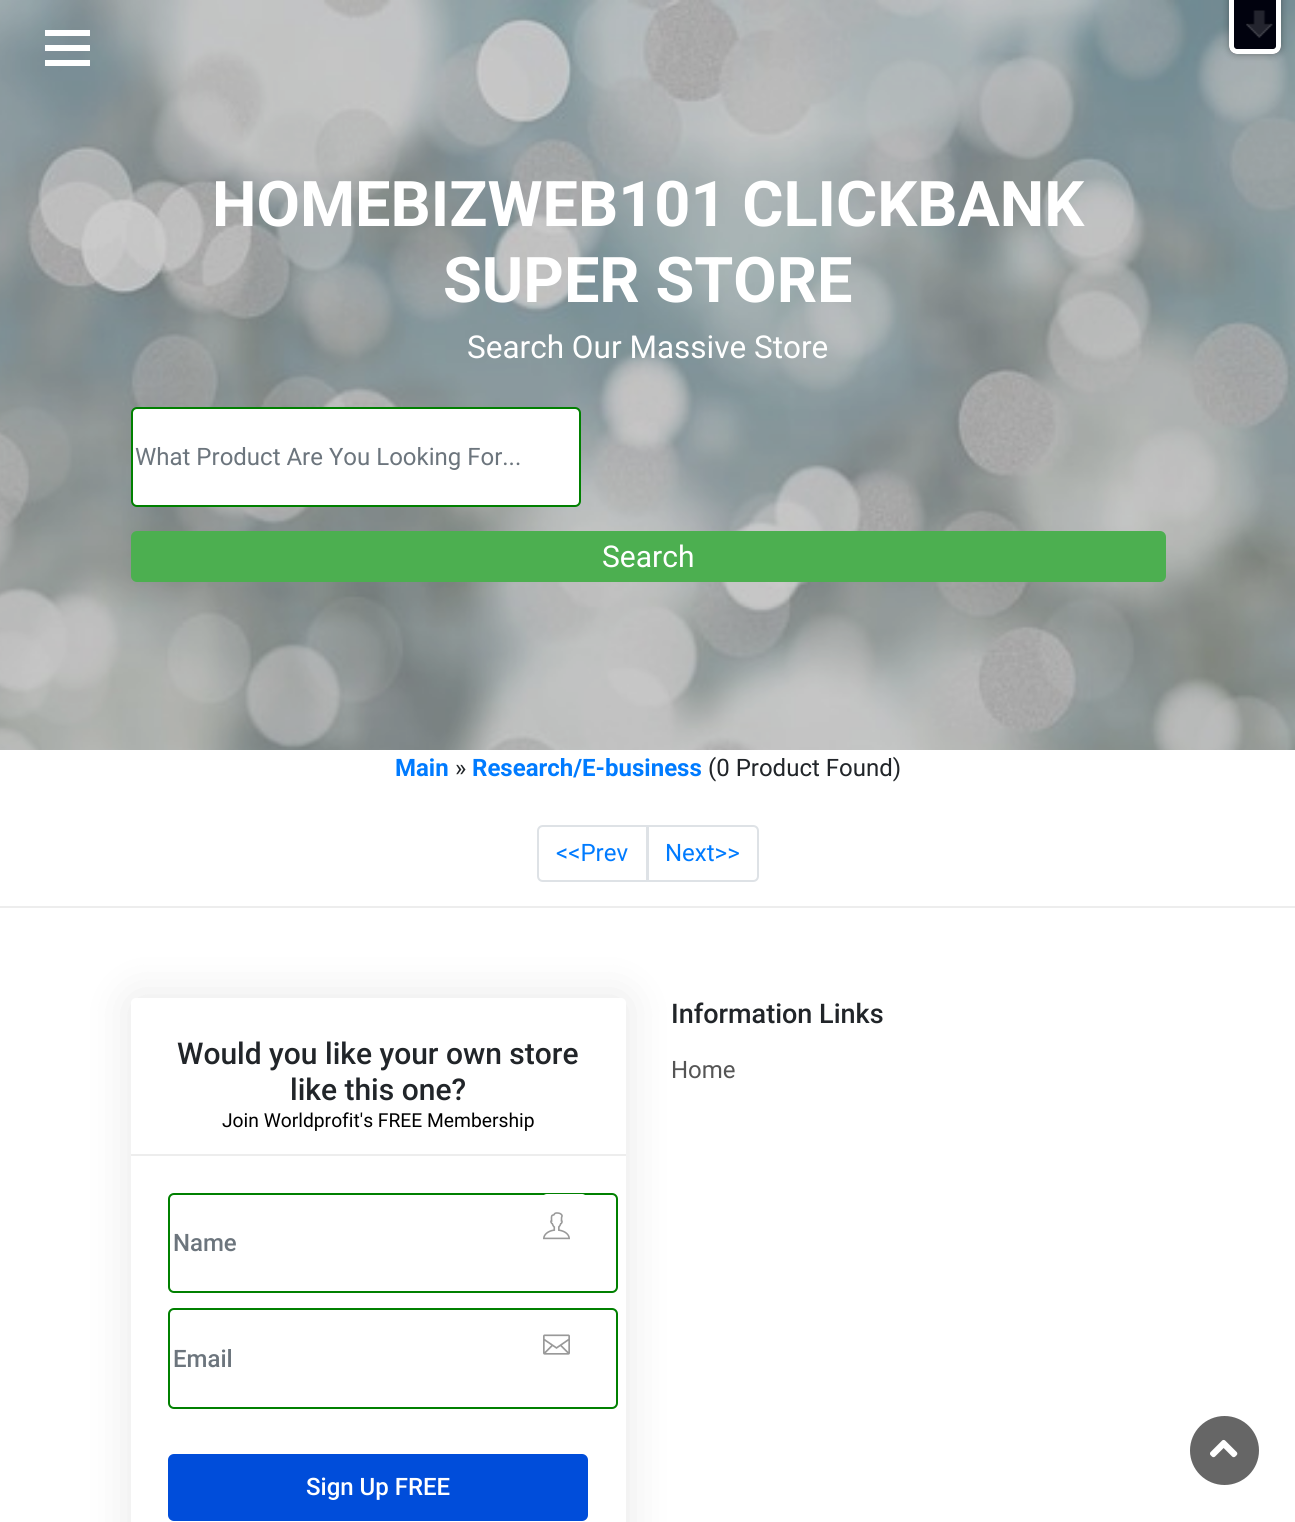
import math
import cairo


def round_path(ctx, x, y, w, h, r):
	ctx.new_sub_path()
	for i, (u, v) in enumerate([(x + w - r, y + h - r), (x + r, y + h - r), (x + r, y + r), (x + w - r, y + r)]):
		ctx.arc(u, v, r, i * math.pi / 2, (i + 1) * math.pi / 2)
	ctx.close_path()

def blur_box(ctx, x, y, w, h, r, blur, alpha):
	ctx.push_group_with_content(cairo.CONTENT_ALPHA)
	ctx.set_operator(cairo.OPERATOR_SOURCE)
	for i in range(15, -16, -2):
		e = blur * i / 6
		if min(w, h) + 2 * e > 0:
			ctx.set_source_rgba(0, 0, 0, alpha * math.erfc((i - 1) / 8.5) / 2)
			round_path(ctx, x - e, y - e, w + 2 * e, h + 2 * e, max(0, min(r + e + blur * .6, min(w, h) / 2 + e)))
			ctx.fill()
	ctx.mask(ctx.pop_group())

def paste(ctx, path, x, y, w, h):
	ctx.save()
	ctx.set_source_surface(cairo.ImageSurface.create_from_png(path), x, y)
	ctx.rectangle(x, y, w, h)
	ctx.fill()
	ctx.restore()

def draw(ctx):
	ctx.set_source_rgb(1, 1, 1)
	ctx.paint()
	paste(ctx, 'media/2.png', 0, 0, 1295, 750)
	ctx.set_source_rgb(1, 1, 1)
	ctx.rectangle(45, 45, 45, 6)
	ctx.rectangle(45, 30, 45, 6)
	ctx.rectangle(45, 60, 45, 6)
	ctx.fill()
	ctx.set_source_rgb(0, 0, 0)
	blur_box(ctx, 1229, -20, 52, 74, 8, 4, 0.35)
	ctx.set_source_rgb(0.004, 0.008, 0.055)
	ctx.new_path()
	ctx.move_to(1229, -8)
	ctx.line_to(1281, -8)
	ctx.line_to(1281, 46)
	ctx.curve_to(1281, 50.5, 1277.5, 54, 1273, 54)
	ctx.line_to(1237, 54)
	ctx.curve_to(1232.5, 54, 1229, 50.5, 1229, 46)
	ctx.close_path()
	ctx.fill()
	paste(ctx, 'media/1.png', 1246, 10, 27, 28)
	ctx.new_path()
	ctx.move_to(1231.5, -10.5)
	ctx.line_to(1278.5, -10.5)
	ctx.line_to(1278.5, 46)
	ctx.curve_to(1278.5, 49, 1276, 51.5, 1273, 51.5)
	ctx.line_to(1237, 51.5)
	ctx.curve_to(1234, 51.5, 1231.5, 49, 1231.5, 46)
	ctx.close_path()
	ctx.set_source_rgb(1, 1, 1)
	ctx.set_line_width(5)
	ctx.stroke()
	ctx.select_font_face('Roboto', cairo.FONT_SLANT_NORMAL, cairo.FONT_WEIGHT_BOLD)
	ctx.set_font_size(63)
	ctx.move_to(212, 226)
	ctx.show_text('HOMEBIZWEB101 CLICKBANK')
	ctx.move_to(443, 302)
	ctx.show_text('SUPER STORE')
	ctx.select_font_face('Roboto')
	ctx.set_font_size(31.5)
	ctx.move_to(467, 358)
	ctx.show_text('Search Our Massive Store')
	round_path(ctx, 132, 408, 448, 98, 5)
	ctx.fill_preserve()
	ctx.set_source_rgb(0, 0.502, 0)
	ctx.set_line_width(2)
	ctx.stroke()
	ctx.set_font_size(24)
	ctx.set_source_rgb(0.424, 0.459, 0.49)
	ctx.move_to(135, 465)
	ctx.show_text('What Product Are You Looking For...')
	ctx.set_source_rgb(0.298, 0.686, 0.314)
	round_path(ctx, 131, 531, 1035, 51, 6)
	ctx.fill()
	ctx.set_font_size(30)
	ctx.set_source_rgb(1, 1, 1)
	ctx.move_to(602, 567)
	ctx.show_text('Search')
	ctx.select_font_face('Roboto', cairo.FONT_SLANT_NORMAL, cairo.FONT_WEIGHT_BOLD)
	ctx.set_font_size(24)
	ctx.set_source_rgb(0, 0.482, 1)
	ctx.move_to(395, 776)
	ctx.show_text('Main')
	ctx.select_font_face('Roboto')
	ctx.set_source_rgb(0.129, 0.145, 0.161)
	ctx.move_to(455, 776)
	ctx.show_text('»')
	ctx.select_font_face('Roboto', cairo.FONT_SLANT_NORMAL, cairo.FONT_WEIGHT_BOLD)
	ctx.set_source_rgb(0, 0.482, 1)
	ctx.move_to(472, 776)
	ctx.show_text('Research/E-business')
	ctx.select_font_face('Roboto')
	ctx.set_source_rgb(0.129, 0.145, 0.161)
	ctx.move_to(708, 776)
	ctx.show_text('(0 Product Found)')
	ctx.new_path()
	ctx.move_to(543, 826)
	ctx.line_to(647, 826)
	ctx.line_to(647, 881)
	ctx.line_to(543, 881)
	ctx.curve_to(540, 881, 538, 879, 538, 876)
	ctx.line_to(538, 831)
	ctx.curve_to(538, 828, 540, 826, 543, 826)
	ctx.close_path()
	ctx.set_source_rgb(0.871, 0.886, 0.902)
	ctx.stroke()
	ctx.set_source_rgb(0, 0.482, 1)
	ctx.move_to(556, 861)
	ctx.show_text('<<Prev')
	ctx.set_source_rgb(1, 1, 1)
	ctx.new_path()
	ctx.move_to(648, 826)
	ctx.line_to(753, 826)
	ctx.curve_to(756, 826, 758, 828, 758, 831)
	ctx.line_to(758, 876)
	ctx.curve_to(758, 879, 756, 881, 753, 881)
	ctx.line_to(648, 881)
	ctx.close_path()
	ctx.fill_preserve()
	ctx.set_source_rgb(0.871, 0.886, 0.902)
	ctx.stroke()
	ctx.set_source_rgb(0, 0.482, 1)
	ctx.move_to(665, 861)
	ctx.show_text('Next>>')
	ctx.set_source_rgb(0.929, 0.929, 0.929)
	ctx.rectangle(0, 906, 1295, 2)
	ctx.fill()
	ctx.set_source_rgb(0, 0, 0)
	blur_box(ctx, 131, 998, 495, 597, 5, 22.5, 0.1)
	ctx.set_source_rgb(1, 1, 1)
	round_path(ctx, 131, 998, 495, 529, 5)
	ctx.fill()
	ctx.set_source_rgb(0.929, 0.929, 0.929)
	ctx.rectangle(131, 1154, 495, 2)
	ctx.fill()
	ctx.select_font_face('Roboto Medium')
	ctx.set_font_size(30)
	ctx.set_source_rgb(0.129, 0.145, 0.161)
	ctx.move_to(177, 1064)
	ctx.show_text('Would you like your own store')
	ctx.move_to(290, 1100)
	ctx.show_text('like this one?')
	ctx.select_font_face('Roboto')
	ctx.set_font_size(19.25)
	ctx.set_source_rgb(0, 0, 0)
	ctx.move_to(222, 1127)
	ctx.show_text('Join Worldprofit\'s FREE Membership')
	round_path(ctx, 169, 1194, 448, 98, 5)
	ctx.set_source_rgb(0, 0.502, 0)
	ctx.stroke()
	ctx.select_font_face('Roboto Medium')
	ctx.set_font_size(24)
	ctx.set_source_rgb(0.424, 0.459, 0.49)
	ctx.move_to(173, 1251)
	ctx.show_text('Name')
	ctx.set_source_rgb(1, 1, 1)
	round_path(ctx, 542, 1194, 45, 65, 5)
	ctx.fill()
	paste(ctx, 'media/3.png', 543, 1212, 27, 28)
	round_path(ctx, 169, 1309, 448, 99, 5)
	ctx.set_source_rgb(0, 0.502, 0)
	ctx.stroke()
	paste(ctx, 'media/4.png', 543, 1334, 27, 21)
	ctx.set_source_rgb(0.424, 0.459, 0.49)
	ctx.move_to(173, 1367)
	ctx.show_text('Email')
	ctx.set_source_rgb(0, 0.302, 0.855)
	round_path(ctx, 168, 1454, 420, 67, 6)
	ctx.fill()
	ctx.set_source_rgb(1, 1, 1)
	ctx.move_to(306, 1495)
	ctx.show_text('Sign Up FREE')
	ctx.set_font_size(27)
	ctx.set_source_rgb(0.129, 0.145, 0.161)
	ctx.move_to(671, 1023)
	ctx.show_text('Information Links')
	ctx.select_font_face('Roboto')
	ctx.set_font_size(24)
	ctx.set_source_rgb(0.333, 0.333, 0.333)
	ctx.move_to(671, 1078)
	ctx.show_text('Home')
	ctx.set_source_rgb(0.4, 0.4, 0.4)
	ctx.new_path()
	ctx.arc(1224.5, 1450.5, 34.5, 0, 2 * math.pi)
	ctx.fill()
	paste(ctx, 'media/5.png', 1210, 1439, 28, 19)


surface = cairo.ImageSurface(cairo.FORMAT_RGB24, 1295, 1522)
ctx = cairo.Context(surface)
options = cairo.FontOptions()
options.set_hint_metrics(cairo.HINT_METRICS_OFF)
options.set_hint_style(cairo.HINT_STYLE_NONE)
ctx.set_font_options(options)
ctx.set_miter_limit(4)
draw(ctx)
surface.write_to_png('image.png')
